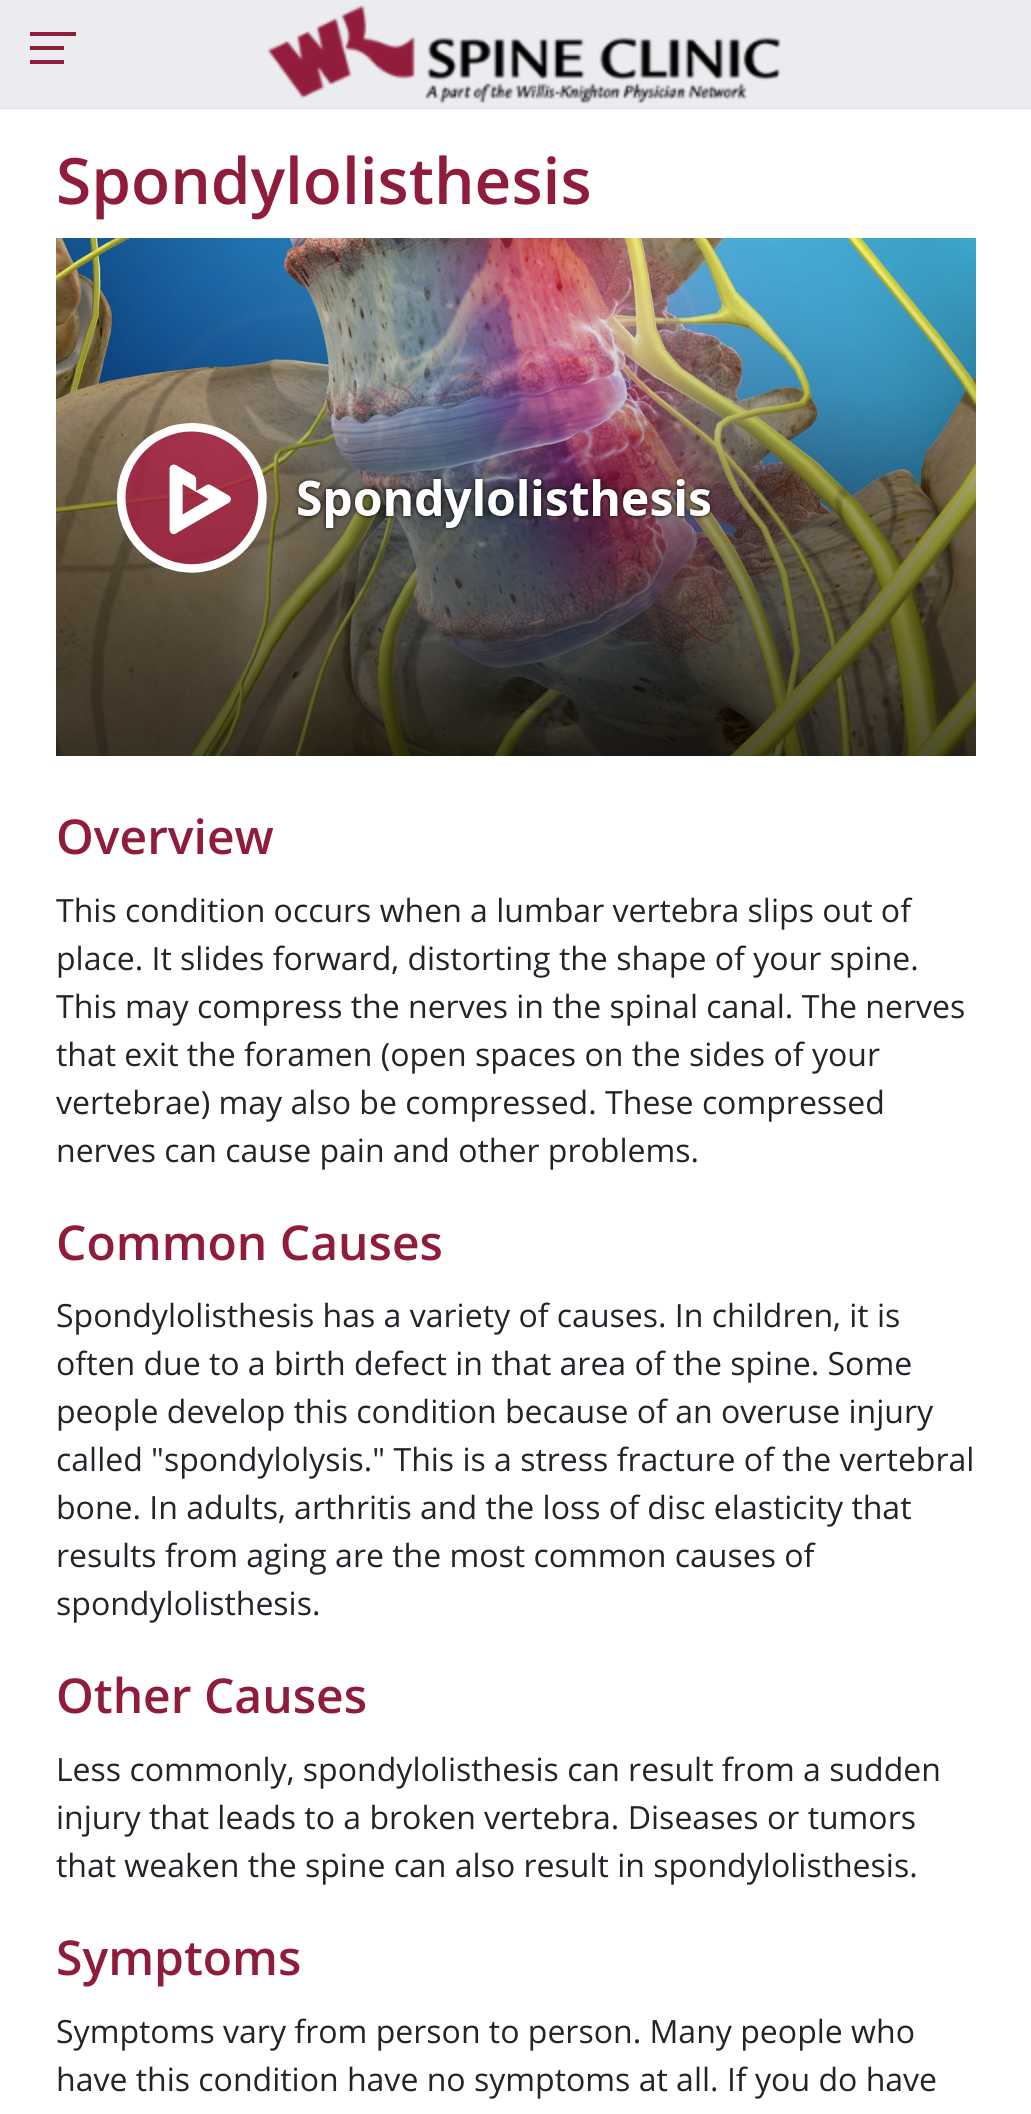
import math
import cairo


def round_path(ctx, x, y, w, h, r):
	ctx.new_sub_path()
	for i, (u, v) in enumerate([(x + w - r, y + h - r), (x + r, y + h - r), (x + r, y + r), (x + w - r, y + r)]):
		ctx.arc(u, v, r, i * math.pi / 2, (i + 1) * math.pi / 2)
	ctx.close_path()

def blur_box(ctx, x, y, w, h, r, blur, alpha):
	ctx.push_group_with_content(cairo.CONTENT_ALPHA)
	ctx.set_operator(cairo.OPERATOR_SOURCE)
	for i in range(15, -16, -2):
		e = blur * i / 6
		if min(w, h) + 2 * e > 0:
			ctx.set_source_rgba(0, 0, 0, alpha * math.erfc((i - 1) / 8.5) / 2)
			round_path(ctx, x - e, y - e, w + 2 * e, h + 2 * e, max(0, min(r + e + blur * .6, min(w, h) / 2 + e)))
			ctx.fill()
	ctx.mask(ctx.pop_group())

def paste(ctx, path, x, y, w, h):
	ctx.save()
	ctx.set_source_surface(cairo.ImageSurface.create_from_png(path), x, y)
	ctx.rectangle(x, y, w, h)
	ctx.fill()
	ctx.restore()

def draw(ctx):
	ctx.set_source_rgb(1, 1, 1)
	ctx.paint()
	ctx.set_source_rgb(0, 0, 0)
	blur_box(ctx, 0, 0, 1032, 108, 0, 1, 0.3)
	ctx.set_source_rgb(0.918, 0.925, 0.941)
	ctx.rectangle(0, 0, 1031, 108)
	ctx.fill()
	ctx.set_source_rgb(0.565, 0.11, 0.235)
	ctx.rectangle(30, 46, 34, 4)
	ctx.rectangle(30, 32, 46, 4)
	ctx.rectangle(30, 60, 34, 4)
	ctx.fill()
	paste(ctx, 'media/1.png', 267, 5, 514, 99)
	ctx.select_font_face('Open Sans SemiBold')
	ctx.set_font_size(64)
	ctx.move_to(56, 204)
	ctx.show_text('Spondylolisthesis')
	paste(ctx, 'media/2.png', 56, 238, 920, 518)
	ctx.set_font_size(48)
	ctx.move_to(56, 854)
	ctx.show_text('Overview')
	ctx.select_font_face('Open Sans')
	ctx.set_font_size(32)
	ctx.set_source_rgb(0.129, 0.145, 0.161)
	for x, y, s in [
		(56, 922, 'This condition occurs when a lumbar vertebra slips out of'),
		(56, 970, 'place. It slides forward, distorting the shape of your spine.'),
		(56, 1018, 'This may compress the nerves in the spinal canal. The nerves'),
		(56, 1066, 'that exit the foramen (open spaces on the sides of your'),
		(56, 1114, 'vertebrae) may also be compressed. These compressed'),
		(56, 1162, 'nerves can cause pain and other problems.'),
	]:
		ctx.move_to(x, y)
		ctx.show_text(s)
	ctx.select_font_face('Open Sans SemiBold')
	ctx.set_font_size(48)
	ctx.set_source_rgb(0.565, 0.11, 0.235)
	ctx.move_to(56, 1260)
	ctx.show_text('Common Causes')
	ctx.select_font_face('Open Sans')
	ctx.set_font_size(32)
	ctx.set_source_rgb(0.129, 0.145, 0.161)
	for x, y, s in [
		(56, 1327, 'Spondylolisthesis has a variety of causes. In children, it is'),
		(56, 1375, 'often due to a birth defect in that area of the spine. Some'),
		(56, 1423, 'people develop this condition because of an overuse injury'),
		(56, 1471, 'called "spondylolysis." This is a stress fracture of the vertebral'),
		(56, 1519, 'bone. In adults, arthritis and the loss of disc elasticity that'),
		(56, 1567, 'results from aging are the most common causes of'),
		(56, 1615, 'spondylolisthesis.'),
	]:
		ctx.move_to(x, y)
		ctx.show_text(s)
	ctx.select_font_face('Open Sans SemiBold')
	ctx.set_font_size(48)
	ctx.set_source_rgb(0.565, 0.11, 0.235)
	ctx.move_to(56, 1713)
	ctx.show_text('Other Causes')
	ctx.select_font_face('Open Sans')
	ctx.set_font_size(32)
	ctx.set_source_rgb(0.129, 0.145, 0.161)
	for x, y, s in [
		(56, 1781, 'Less commonly, spondylolisthesis can result from a sudden'),
		(56, 1829, 'injury that leads to a broken vertebra. Diseases or tumors'),
		(56, 1877, 'that weaken the spine can also result in spondylolisthesis.'),
	]:
		ctx.move_to(x, y)
		ctx.show_text(s)
	ctx.select_font_face('Open Sans SemiBold')
	ctx.set_font_size(48)
	ctx.set_source_rgb(0.565, 0.11, 0.235)
	ctx.move_to(56, 1975)
	ctx.show_text('Symptoms')
	ctx.select_font_face('Open Sans')
	ctx.set_font_size(32)
	ctx.set_source_rgb(0.129, 0.145, 0.161)
	ctx.move_to(56, 2043)
	ctx.show_text('Symptoms vary from person to person. Many people who')
	ctx.move_to(56, 2091)
	ctx.show_text('have this condition have no symptoms at all. If you do have')


surface = cairo.ImageSurface(cairo.FORMAT_RGB24, 1031, 2114)
ctx = cairo.Context(surface)
options = cairo.FontOptions()
options.set_hint_metrics(cairo.HINT_METRICS_OFF)
options.set_hint_style(cairo.HINT_STYLE_NONE)
ctx.set_font_options(options)
ctx.set_miter_limit(4)
draw(ctx)
surface.write_to_png('image.png')
